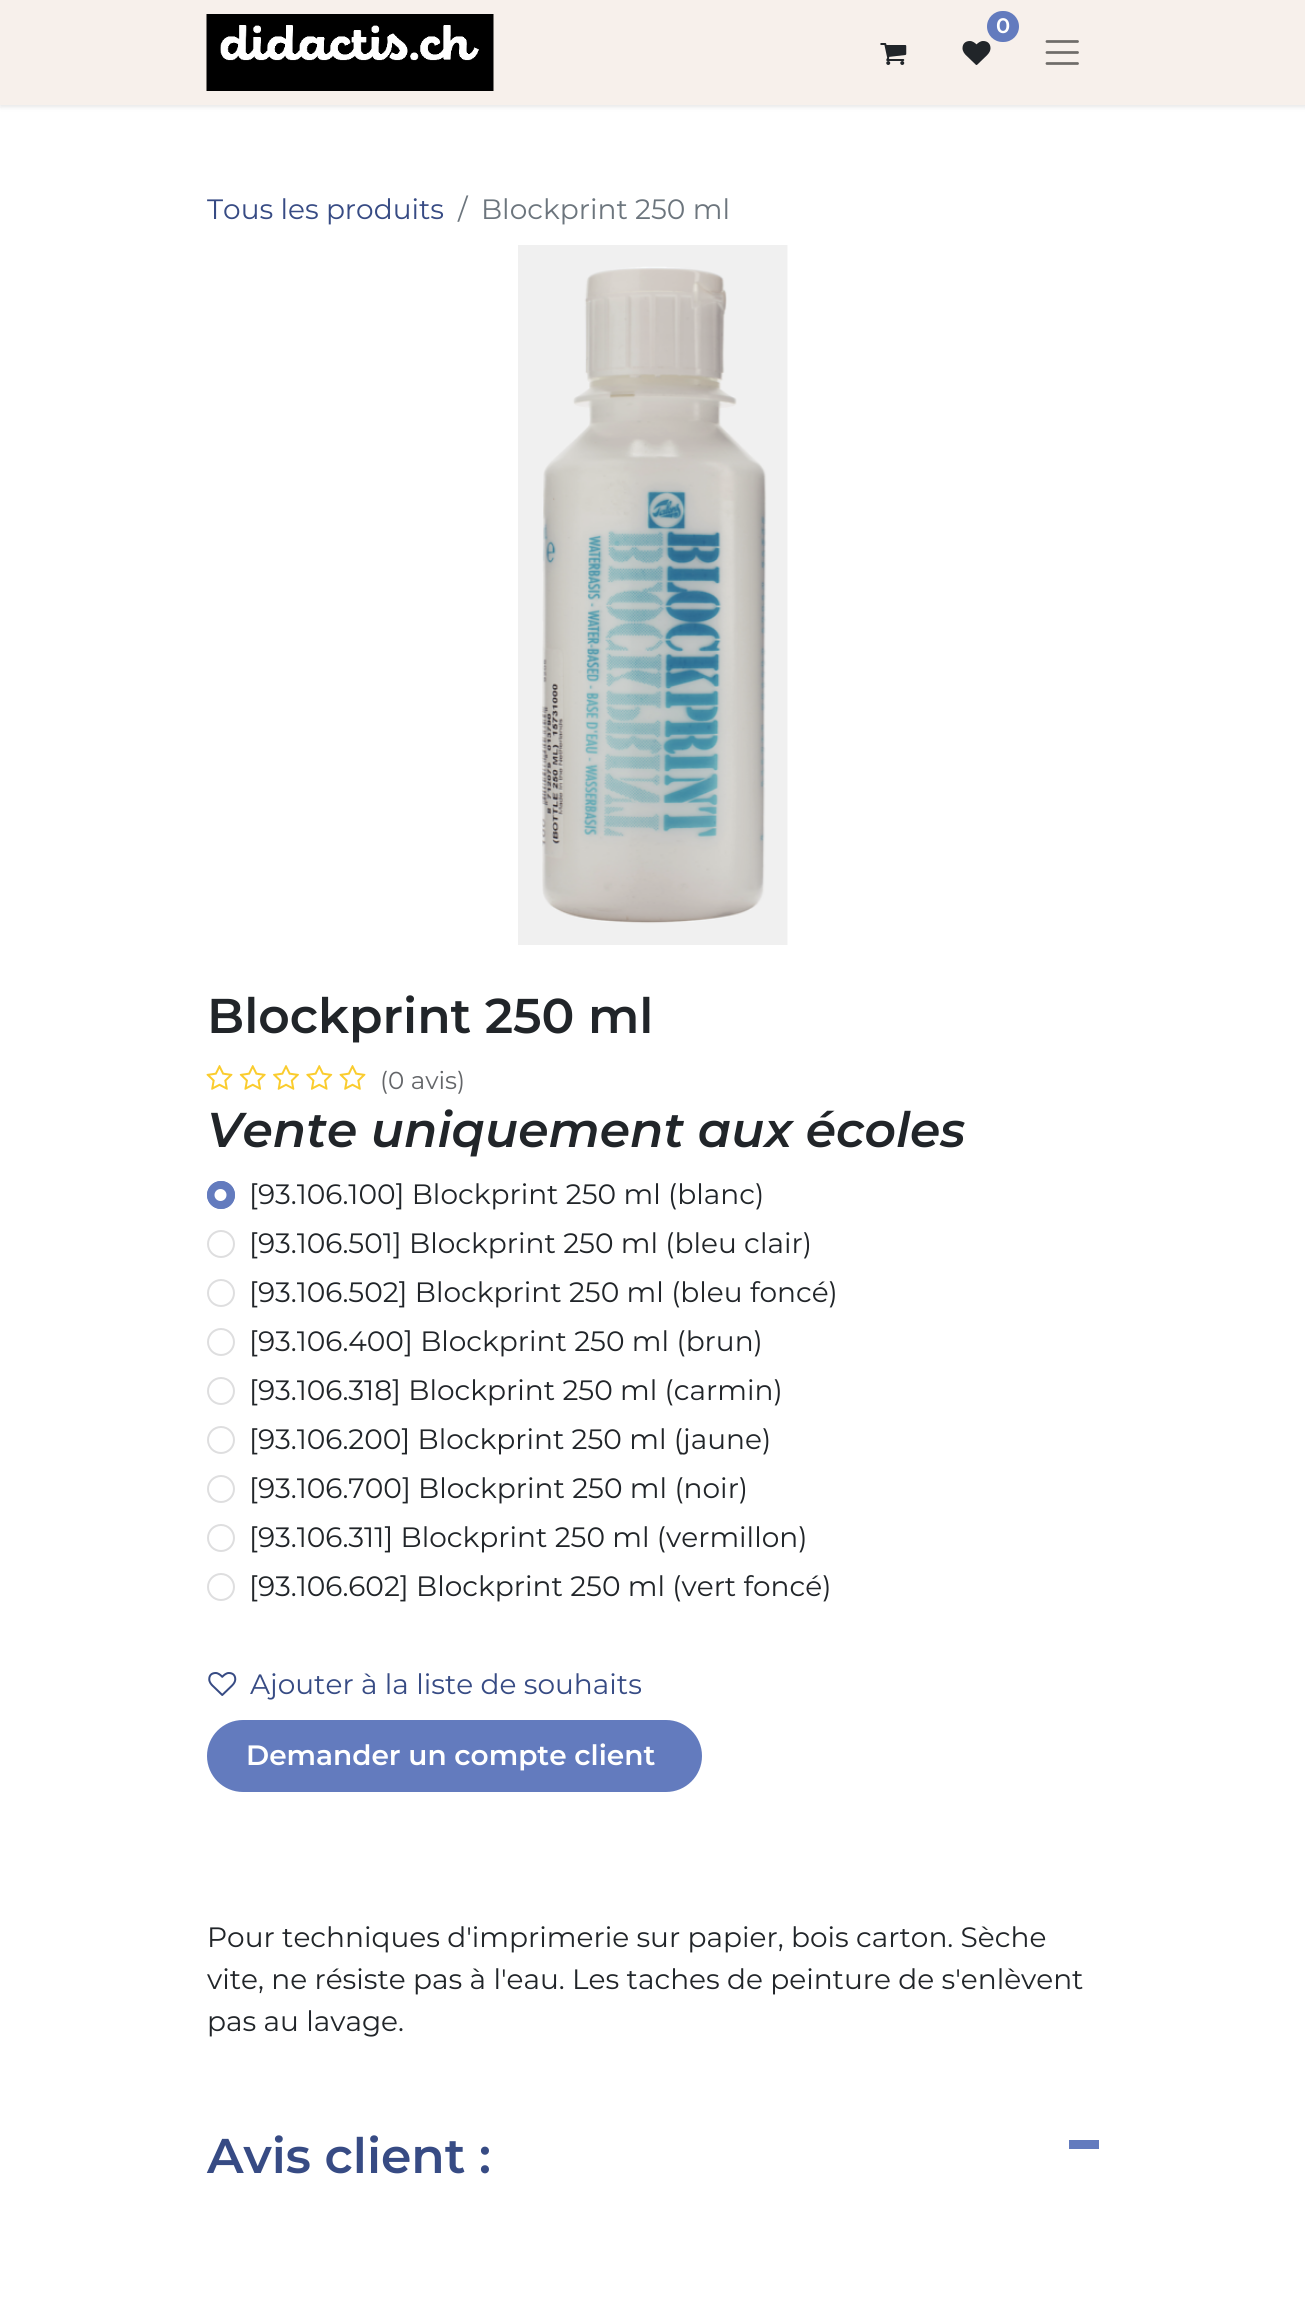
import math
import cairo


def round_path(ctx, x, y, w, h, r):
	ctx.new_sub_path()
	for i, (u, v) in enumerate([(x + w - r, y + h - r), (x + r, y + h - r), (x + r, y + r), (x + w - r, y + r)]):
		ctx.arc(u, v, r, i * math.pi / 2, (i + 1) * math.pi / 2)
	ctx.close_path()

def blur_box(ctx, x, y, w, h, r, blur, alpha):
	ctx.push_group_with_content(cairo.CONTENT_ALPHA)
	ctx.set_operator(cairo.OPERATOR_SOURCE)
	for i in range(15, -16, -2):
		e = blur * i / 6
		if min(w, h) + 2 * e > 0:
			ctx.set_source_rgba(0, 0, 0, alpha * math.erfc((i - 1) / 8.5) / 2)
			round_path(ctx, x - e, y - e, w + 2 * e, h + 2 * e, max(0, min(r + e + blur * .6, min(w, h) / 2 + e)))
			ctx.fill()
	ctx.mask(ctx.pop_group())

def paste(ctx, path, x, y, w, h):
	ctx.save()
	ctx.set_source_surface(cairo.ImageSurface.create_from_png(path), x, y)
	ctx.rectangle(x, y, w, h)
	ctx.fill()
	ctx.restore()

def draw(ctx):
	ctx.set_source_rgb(1, 1, 1)
	ctx.paint()
	ctx.set_source_rgb(0, 0, 0)
	blur_box(ctx, 0, 2, 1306, 105, 0, 2.5, 0.1)
	ctx.set_source_rgb(0.965, 0.941, 0.918)
	ctx.rectangle(0, 0, 1305, 105)
	ctx.fill()
	paste(ctx, 'media/1.png', 206, 14, 288, 77)
	paste(ctx, 'media/2.png', 962, 41, 29, 24)
	ctx.set_source_rgb(0.388, 0.482, 0.745)
	round_path(ctx, 987, 11, 32, 31, 15.5)
	ctx.fill()
	ctx.select_font_face('Montserrat SemiBold')
	ctx.set_font_size(21)
	ctx.set_source_rgb(1, 1, 1)
	ctx.move_to(996, 33)
	ctx.show_text('0')
	paste(ctx, 'media/3.png', 880, 43, 27, 22)
	ctx.new_path()
	ctx.move_to(1047, 41.5)
	ctx.line_to(1077.5, 41.5)
	ctx.move_to(1047, 52.5)
	ctx.line_to(1077.5, 52.5)
	ctx.move_to(1047, 63.5)
	ctx.line_to(1077.5, 63.5)
	ctx.set_source_rgb(0.435, 0.424, 0.412)
	ctx.set_line_width(2.8)
	ctx.set_line_cap(cairo.LINE_CAP_ROUND)
	ctx.stroke()
	ctx.select_font_face('Montserrat')
	ctx.set_font_size(28)
	ctx.set_source_rgb(0.216, 0.294, 0.518)
	ctx.move_to(207, 219)
	ctx.show_text('Tous les produits')
	ctx.set_source_rgb(0.424, 0.459, 0.49)
	ctx.move_to(458, 219)
	ctx.show_text('/')
	ctx.move_to(481, 219)
	ctx.show_text('Blockprint 250 ml')
	paste(ctx, 'media/4.png', 518, 245, 270, 700)
	ctx.select_font_face('Montserrat SemiBold')
	ctx.set_font_size(48.8)
	ctx.set_source_rgb(0.129, 0.145, 0.161)
	ctx.move_to(207, 1033)
	ctx.show_text('Blockprint 250 ml')
	paste(ctx, 'media/5.png', 206, 1065, 27, 25)
	paste(ctx, 'media/6.png', 239, 1065, 27, 25)
	paste(ctx, 'media/7.png', 273, 1065, 26, 25)
	paste(ctx, 'media/8.png', 306, 1065, 27, 25)
	paste(ctx, 'media/5.png', 339, 1065, 27, 25)
	ctx.select_font_face('Montserrat')
	ctx.set_font_size(24.5)
	ctx.set_source_rgb(0.392, 0.4, 0.412)
	ctx.move_to(380, 1089)
	ctx.show_text('(0 avis)')
	ctx.select_font_face('Montserrat SemiBold', cairo.FONT_SLANT_ITALIC)
	ctx.set_font_size(48.8)
	ctx.set_source_rgb(0.129, 0.145, 0.161)
	ctx.move_to(207, 1147)
	ctx.show_text('Vente uniquement aux écoles')
	ctx.set_source_rgb(0.388, 0.482, 0.745)
	ctx.new_path()
	ctx.arc(221, 1195, 14, 0, 2 * math.pi)
	ctx.fill()
	ctx.set_source_rgb(1, 1, 1)
	ctx.arc(220.5, 1195, 6, 0, 2 * math.pi)
	ctx.fill()
	ctx.arc(221, 1195, 13, 0, 2 * math.pi)
	ctx.set_source_rgb(0.388, 0.482, 0.745)
	ctx.set_line_width(2)
	ctx.set_line_cap(cairo.LINE_CAP_BUTT)
	ctx.stroke()
	ctx.select_font_face('Montserrat')
	ctx.set_font_size(28)
	ctx.set_source_rgb(0.129, 0.145, 0.161)
	ctx.move_to(249, 1204)
	ctx.show_text('[93.106.100] Blockprint 250 ml (blanc)')
	ctx.new_path()
	ctx.arc(221, 1244, 13, 0, 2 * math.pi)
	ctx.set_source_rgb(0.871, 0.871, 0.875)
	ctx.stroke()
	ctx.set_source_rgb(0.129, 0.145, 0.161)
	ctx.move_to(249, 1253)
	ctx.show_text('[93.106.501] Blockprint 250 ml (bleu clair)')
	ctx.new_path()
	ctx.arc(221, 1293, 13, 0, 2 * math.pi)
	ctx.set_source_rgb(0.871, 0.871, 0.875)
	ctx.stroke()
	ctx.set_source_rgb(0.129, 0.145, 0.161)
	ctx.move_to(249, 1302)
	ctx.show_text('[93.106.502] Blockprint 250 ml (bleu foncé)')
	ctx.new_path()
	ctx.arc(221, 1342, 13, 0, 2 * math.pi)
	ctx.set_source_rgb(0.871, 0.871, 0.875)
	ctx.stroke()
	ctx.set_source_rgb(0.129, 0.145, 0.161)
	ctx.move_to(249, 1351)
	ctx.show_text('[93.106.400] Blockprint 250 ml (brun)')
	ctx.new_path()
	ctx.arc(221, 1391, 13, 0, 2 * math.pi)
	ctx.set_source_rgb(0.871, 0.871, 0.875)
	ctx.stroke()
	ctx.set_source_rgb(0.129, 0.145, 0.161)
	ctx.move_to(249, 1400)
	ctx.show_text('[93.106.318] Blockprint 250 ml (carmin)')
	ctx.new_path()
	ctx.arc(221, 1440, 13, 0, 2 * math.pi)
	ctx.set_source_rgb(0.871, 0.871, 0.875)
	ctx.stroke()
	ctx.set_source_rgb(0.129, 0.145, 0.161)
	ctx.move_to(249, 1449)
	ctx.show_text('[93.106.200] Blockprint 250 ml (jaune)')
	ctx.new_path()
	ctx.arc(221, 1489, 13, 0, 2 * math.pi)
	ctx.set_source_rgb(0.871, 0.871, 0.875)
	ctx.stroke()
	ctx.set_source_rgb(0.129, 0.145, 0.161)
	ctx.move_to(249, 1498)
	ctx.show_text('[93.106.700] Blockprint 250 ml (noir)')
	ctx.new_path()
	ctx.arc(221, 1538, 13, 0, 2 * math.pi)
	ctx.set_source_rgb(0.871, 0.871, 0.875)
	ctx.stroke()
	ctx.set_source_rgb(0.129, 0.145, 0.161)
	ctx.move_to(249, 1547)
	ctx.show_text('[93.106.311] Blockprint 250 ml (vermillon)')
	ctx.new_path()
	ctx.arc(221, 1587, 13, 0, 2 * math.pi)
	ctx.set_source_rgb(0.871, 0.871, 0.875)
	ctx.stroke()
	ctx.set_source_rgb(0.129, 0.145, 0.161)
	ctx.move_to(249, 1596)
	ctx.show_text('[93.106.602] Blockprint 250 ml (vert foncé)')
	paste(ctx, 'media/9.png', 208, 1672, 29, 24)
	ctx.set_source_rgb(0.216, 0.294, 0.518)
	ctx.move_to(250, 1694)
	ctx.show_text('Ajouter à la liste de souhaits')
	ctx.set_source_rgb(0.388, 0.482, 0.745)
	round_path(ctx, 208, 1721, 493, 70, 35)
	ctx.fill_preserve()
	ctx.stroke()
	ctx.select_font_face('Montserrat SemiBold')
	ctx.set_source_rgb(1, 1, 1)
	ctx.move_to(246, 1765)
	ctx.show_text('Demander un compte client')
	ctx.select_font_face('Montserrat')
	ctx.set_source_rgb(0.129, 0.145, 0.161)
	for x, y, s in [
		(207, 1947, 'Pour techniques d\'imprimerie sur papier, bois carton. Sèche'),
		(207, 1989, 'vite, ne résiste pas à l\'eau. Les taches de peinture de s\'enlèvent'),
		(207, 2031, 'pas au lavage.'),
	]:
		ctx.move_to(x, y)
		ctx.show_text(s)
	ctx.select_font_face('Montserrat SemiBold')
	ctx.set_font_size(48.8)
	ctx.set_source_rgb(0.216, 0.294, 0.518)
	ctx.move_to(207, 2173)
	ctx.show_text('Avis client :')
	ctx.set_source_rgb(0.388, 0.482, 0.745)
	ctx.rectangle(1069, 2140, 30, 9)
	ctx.fill()


surface = cairo.ImageSurface(cairo.FORMAT_RGB24, 1305, 2302)
ctx = cairo.Context(surface)
options = cairo.FontOptions()
options.set_hint_metrics(cairo.HINT_METRICS_OFF)
options.set_hint_style(cairo.HINT_STYLE_NONE)
ctx.set_font_options(options)
ctx.set_miter_limit(4)
draw(ctx)
surface.write_to_png('image.png')
